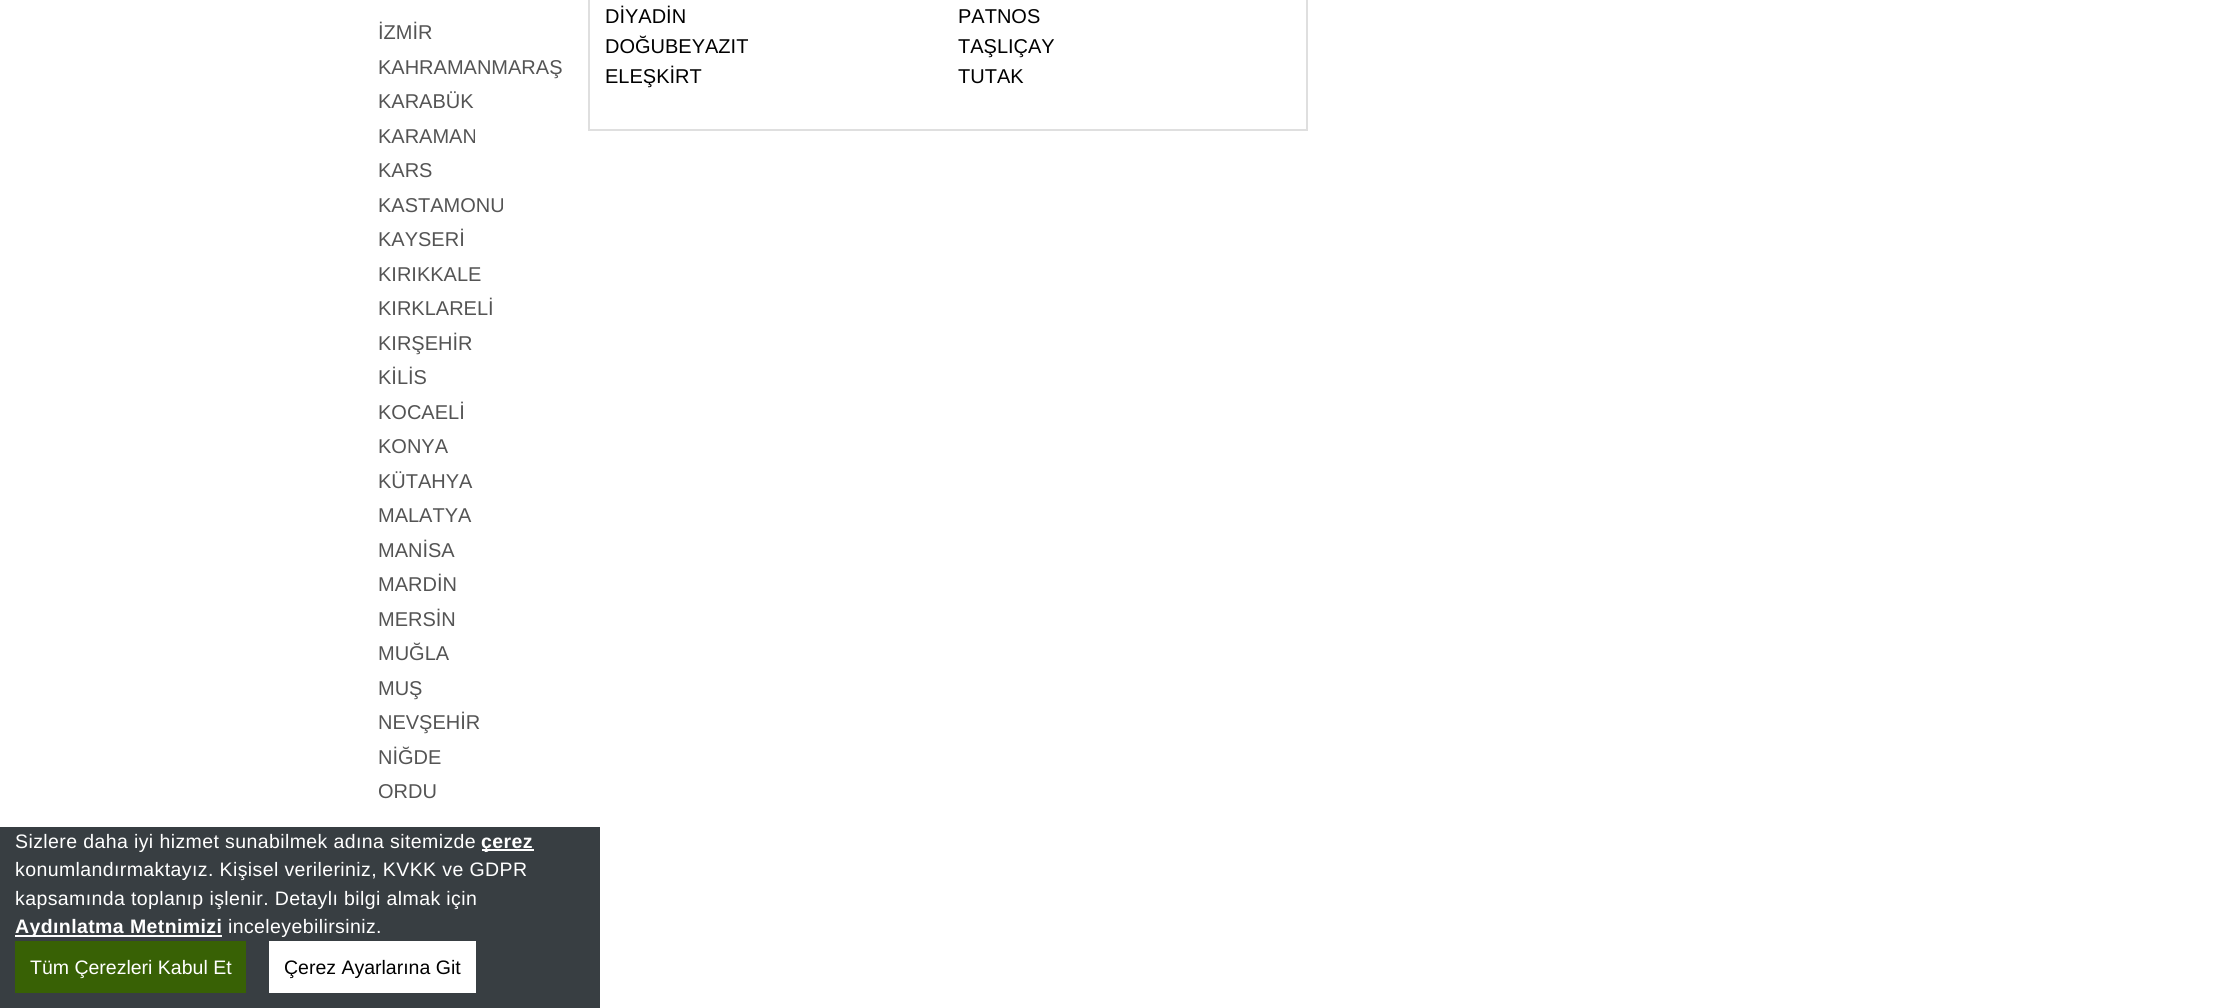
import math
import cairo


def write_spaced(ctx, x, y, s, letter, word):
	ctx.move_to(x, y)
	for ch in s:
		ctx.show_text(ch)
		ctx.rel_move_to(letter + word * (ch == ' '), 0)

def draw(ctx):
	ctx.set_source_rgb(1, 1, 1)
	ctx.paint()
	ctx.select_font_face('Liberation Sans')
	ctx.set_font_size(20)
	ctx.set_source_rgb(0.329, 0.329, 0.329)
	for x, y, s in [
		(378, 39, 'İZMİR'),
		(378, 74, 'KAHRAMANMARAŞ'),
		(378, 108, 'KARABÜK'),
		(378, 143, 'KARAMAN'),
		(378, 177, 'KARS'),
		(378, 212, 'KASTAMONU'),
		(378, 246, 'KAYSERİ'),
		(378, 281, 'KIRIKKALE'),
		(378, 315, 'KIRKLARELİ'),
		(378, 350, 'KIRŞEHİR'),
		(378, 384, 'KİLİS'),
		(378, 419, 'KOCAELİ'),
		(378, 453, 'KONYA'),
		(378, 488, 'KÜTAHYA'),
		(378, 522, 'MALATYA'),
		(378, 557, 'MANİSA'),
		(378, 591, 'MARDİN'),
		(378, 626, 'MERSİN'),
		(378, 660, 'MUĞLA'),
		(378, 695, 'MUŞ'),
		(378, 729, 'NEVŞEHİR'),
		(378, 764, 'NİĞDE'),
		(378, 798, 'ORDU'),
	]:
		ctx.move_to(x, y)
		ctx.show_text(s)
	ctx.rectangle(589, -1, 718, 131)
	ctx.set_source_rgb(0.875, 0.875, 0.875)
	ctx.stroke()
	ctx.set_source_rgb(0, 0, 0)
	for x, y, s in [
		(605, 23, 'DİYADİN'),
		(958, 23, 'PATNOS'),
		(605, 53, 'DOĞUBEYAZIT'),
		(958, 53, 'TAŞLIÇAY'),
		(605, 83, 'ELEŞKİRT'),
		(958, 83, 'TUTAK'),
	]:
		ctx.move_to(x, y)
		ctx.show_text(s)
	ctx.set_source_rgb(0.22, 0.243, 0.259)
	ctx.rectangle(0, 827, 600, 181)
	ctx.fill()
	ctx.set_font_size(19.5)
	ctx.set_source_rgb(1, 1, 1)
	write_spaced(ctx, 15, 848, 'Sizlere daha iyi hizmet sunabilmek adına sitemizde', 0.4, 0)
	ctx.rectangle(482, 849, 52, 2)
	ctx.fill()
	ctx.select_font_face('Liberation Sans', cairo.FONT_SLANT_NORMAL, cairo.FONT_WEIGHT_BOLD)
	write_spaced(ctx, 481, 848, 'çerez', 0.4, 0)
	ctx.select_font_face('Liberation Sans')
	write_spaced(ctx, 15, 876, 'konumlandırmaktayız. Kişisel verileriniz, KVKK ve GDPR', 0.4, 0)
	write_spaced(ctx, 15, 905, 'kapsamında toplanıp işlenir. Detaylı bilgi almak için', 0.4, 0)
	ctx.rectangle(15, 935, 207, 2)
	ctx.fill()
	ctx.select_font_face('Liberation Sans', cairo.FONT_SLANT_NORMAL, cairo.FONT_WEIGHT_BOLD)
	write_spaced(ctx, 15, 933, 'Aydınlatma Metnimizi', 0.4, 0)
	ctx.select_font_face('Liberation Sans')
	write_spaced(ctx, 228, 933, 'inceleyebilirsiniz.', 0.4, 0)
	ctx.set_source_rgb(0.22, 0.38, 0.02)
	ctx.rectangle(15, 941, 231, 52)
	ctx.fill()
	ctx.set_source_rgb(1, 1, 1)
	ctx.move_to(30, 974)
	ctx.show_text('Tüm Çerezleri Kabul Et')
	ctx.rectangle(269, 941, 207, 52)
	ctx.fill()
	ctx.set_source_rgb(0, 0, 0)
	ctx.move_to(284, 974)
	ctx.show_text('Çerez Ayarlarına Git')


surface = cairo.ImageSurface(cairo.FORMAT_RGB24, 2226, 1008)
ctx = cairo.Context(surface)
options = cairo.FontOptions()
options.set_hint_metrics(cairo.HINT_METRICS_OFF)
options.set_hint_style(cairo.HINT_STYLE_NONE)
ctx.set_font_options(options)
ctx.set_miter_limit(4)
draw(ctx)
surface.write_to_png('image.png')
